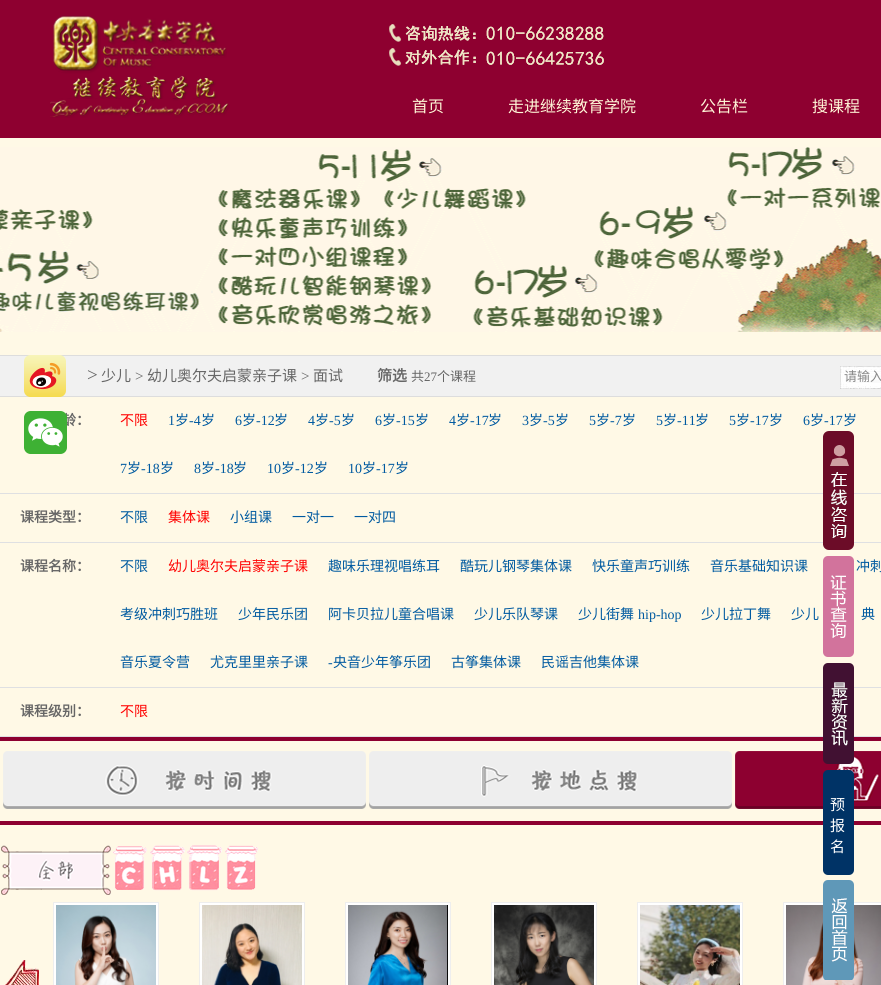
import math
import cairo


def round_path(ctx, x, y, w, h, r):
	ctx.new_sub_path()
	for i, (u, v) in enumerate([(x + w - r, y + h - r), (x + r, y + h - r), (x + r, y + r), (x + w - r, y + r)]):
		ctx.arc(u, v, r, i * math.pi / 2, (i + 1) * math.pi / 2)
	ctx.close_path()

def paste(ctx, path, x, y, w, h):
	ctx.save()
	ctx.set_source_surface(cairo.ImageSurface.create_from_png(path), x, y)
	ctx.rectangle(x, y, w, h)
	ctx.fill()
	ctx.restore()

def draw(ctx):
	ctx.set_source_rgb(1, 0.976, 0.902)
	ctx.paint()
	ctx.set_source_rgb(0.557, 0, 0.188)
	ctx.rectangle(0, 0, 881, 138)
	ctx.fill()
	paste(ctx, 'media/1.png', 50, 15, 180, 103)
	paste(ctx, 'media/2.png', 389, 24, 215, 42)
	paste(ctx, 'media/3.png', 389, 24, 215, 42)
	ctx.select_font_face('Noto Sans CJK SC')
	ctx.set_font_size(16)
	ctx.set_source_rgb(1, 0.961, 0.843)
	for x, y, s in [
		(412, 112, '首页'),
		(508, 112, '走进继续教育学院'),
		(700, 112, '公告栏'),
		(812, 112, '搜课程'),
	]:
		ctx.move_to(x, y)
		ctx.show_text(s)
	paste(ctx, 'media/4.png', 0, 147, 881, 185)
	ctx.set_source_rgb(0.945, 0.945, 0.945)
	ctx.rectangle(0, 356, 881, 40)
	ctx.fill()
	ctx.set_source_rgb(0.867, 0.867, 0.867)
	ctx.rectangle(0, 355, 881, 1)
	ctx.rectangle(0, 396, 881, 1)
	ctx.fill()
	paste(ctx, 'media/5.png', 24, 355, 42, 42)
	ctx.select_font_face('Noto Sans CJK SC', cairo.FONT_SLANT_NORMAL, cairo.FONT_WEIGHT_BOLD)
	ctx.set_font_size(14)
	ctx.set_source_rgb(0.4, 0.4, 0.4)
	ctx.move_to(62, 425)
	ctx.show_text('龄：')
	paste(ctx, 'media/6.png', 24, 411, 43, 43)
	ctx.select_font_face('Liberation Serif')
	ctx.set_font_size(19)
	ctx.move_to(87, 381)
	ctx.show_text('>')
	ctx.select_font_face('Noto Sans CJK SC')
	ctx.set_font_size(15)
	ctx.move_to(101, 381)
	ctx.show_text('少儿')
	ctx.select_font_face('Liberation Serif')
	ctx.move_to(135, 381)
	ctx.show_text('>')
	ctx.select_font_face('Noto Sans CJK SC')
	ctx.move_to(147, 381)
	ctx.show_text('幼儿奥尔夫启蒙亲子课')
	ctx.select_font_face('Liberation Serif')
	ctx.move_to(301, 381)
	ctx.show_text('>')
	ctx.select_font_face('Noto Sans CJK SC')
	ctx.move_to(313, 381)
	ctx.show_text('面试')
	ctx.select_font_face('Noto Sans CJK SC', cairo.FONT_SLANT_NORMAL, cairo.FONT_WEIGHT_BOLD)
	ctx.move_to(377, 381)
	ctx.show_text('筛选')
	ctx.select_font_face('Noto Sans CJK SC')
	ctx.set_font_size(13)
	ctx.move_to(411, 381)
	ctx.show_text('共')
	ctx.select_font_face('Liberation Serif')
	ctx.move_to(424, 381)
	ctx.show_text('27')
	ctx.select_font_face('Noto Sans CJK SC')
	ctx.move_to(437, 381)
	ctx.show_text('个课程')
	paste(ctx, 'media/7.png', 840, 366, 41, 23)
	ctx.set_source_rgb(0.533, 0.533, 0.533)
	ctx.move_to(844, 381)
	ctx.show_text('请输入')
	ctx.set_source_rgb(0.875, 0.878, 0.886)
	ctx.rectangle(0, 493, 881, 1)
	ctx.fill()
	ctx.set_font_size(14)
	ctx.set_source_rgb(1, 0, 0)
	ctx.move_to(120, 425)
	ctx.show_text('不限')
	ctx.select_font_face('Liberation Serif')
	ctx.set_source_rgb(0, 0.353, 0.627)
	ctx.move_to(168, 425)
	ctx.show_text('1')
	ctx.select_font_face('Noto Sans CJK SC')
	ctx.move_to(175, 425)
	ctx.show_text('岁')
	ctx.select_font_face('Liberation Serif')
	ctx.move_to(189, 425)
	ctx.show_text('-4')
	ctx.select_font_face('Noto Sans CJK SC')
	ctx.move_to(201, 425)
	ctx.show_text('岁')
	ctx.select_font_face('Liberation Serif')
	ctx.move_to(235, 425)
	ctx.show_text('6')
	ctx.select_font_face('Noto Sans CJK SC')
	ctx.move_to(242, 425)
	ctx.show_text('岁')
	ctx.select_font_face('Liberation Serif')
	ctx.move_to(256, 425)
	ctx.show_text('-12')
	ctx.select_font_face('Noto Sans CJK SC')
	ctx.move_to(274, 425)
	ctx.show_text('岁')
	ctx.select_font_face('Liberation Serif')
	ctx.move_to(308, 425)
	ctx.show_text('4')
	ctx.select_font_face('Noto Sans CJK SC')
	ctx.move_to(315, 425)
	ctx.show_text('岁')
	ctx.select_font_face('Liberation Serif')
	ctx.move_to(329, 425)
	ctx.show_text('-5')
	ctx.select_font_face('Noto Sans CJK SC')
	ctx.move_to(341, 425)
	ctx.show_text('岁')
	ctx.select_font_face('Liberation Serif')
	ctx.move_to(375, 425)
	ctx.show_text('6')
	ctx.select_font_face('Noto Sans CJK SC')
	ctx.move_to(382, 425)
	ctx.show_text('岁')
	ctx.select_font_face('Liberation Serif')
	ctx.move_to(396, 425)
	ctx.show_text('-15')
	ctx.select_font_face('Noto Sans CJK SC')
	ctx.move_to(415, 425)
	ctx.show_text('岁')
	ctx.select_font_face('Liberation Serif')
	ctx.move_to(449, 425)
	ctx.show_text('4')
	ctx.select_font_face('Noto Sans CJK SC')
	ctx.move_to(456, 425)
	ctx.show_text('岁')
	ctx.select_font_face('Liberation Serif')
	ctx.move_to(470, 425)
	ctx.show_text('-17')
	ctx.select_font_face('Noto Sans CJK SC')
	ctx.move_to(488, 425)
	ctx.show_text('岁')
	ctx.select_font_face('Liberation Serif')
	ctx.move_to(522, 425)
	ctx.show_text('3')
	ctx.select_font_face('Noto Sans CJK SC')
	ctx.move_to(529, 425)
	ctx.show_text('岁')
	ctx.select_font_face('Liberation Serif')
	ctx.move_to(543, 425)
	ctx.show_text('-5')
	ctx.select_font_face('Noto Sans CJK SC')
	ctx.move_to(555, 425)
	ctx.show_text('岁')
	ctx.select_font_face('Liberation Serif')
	ctx.move_to(589, 425)
	ctx.show_text('5')
	ctx.select_font_face('Noto Sans CJK SC')
	ctx.move_to(596, 425)
	ctx.show_text('岁')
	ctx.select_font_face('Liberation Serif')
	ctx.move_to(610, 425)
	ctx.show_text('-7')
	ctx.select_font_face('Noto Sans CJK SC')
	ctx.move_to(622, 425)
	ctx.show_text('岁')
	ctx.select_font_face('Liberation Serif')
	ctx.move_to(656, 425)
	ctx.show_text('5')
	ctx.select_font_face('Noto Sans CJK SC')
	ctx.move_to(663, 425)
	ctx.show_text('岁')
	ctx.select_font_face('Liberation Serif')
	ctx.move_to(677, 425)
	ctx.show_text('-11')
	ctx.select_font_face('Noto Sans CJK SC')
	ctx.move_to(695, 425)
	ctx.show_text('岁')
	ctx.select_font_face('Liberation Serif')
	ctx.move_to(729, 425)
	ctx.show_text('5')
	ctx.select_font_face('Noto Sans CJK SC')
	ctx.move_to(736, 425)
	ctx.show_text('岁')
	ctx.select_font_face('Liberation Serif')
	ctx.move_to(750, 425)
	ctx.show_text('-17')
	ctx.select_font_face('Noto Sans CJK SC')
	ctx.move_to(769, 425)
	ctx.show_text('岁')
	ctx.select_font_face('Liberation Serif')
	ctx.move_to(803, 425)
	ctx.show_text('6')
	ctx.select_font_face('Noto Sans CJK SC')
	ctx.move_to(810, 425)
	ctx.show_text('岁')
	ctx.select_font_face('Liberation Serif')
	ctx.move_to(824, 425)
	ctx.show_text('-17')
	ctx.select_font_face('Noto Sans CJK SC')
	ctx.move_to(843, 425)
	ctx.show_text('岁')
	ctx.select_font_face('Liberation Serif')
	ctx.move_to(120, 473)
	ctx.show_text('7')
	ctx.select_font_face('Noto Sans CJK SC')
	ctx.move_to(127, 473)
	ctx.show_text('岁')
	ctx.select_font_face('Liberation Serif')
	ctx.move_to(141, 473)
	ctx.show_text('-18')
	ctx.select_font_face('Noto Sans CJK SC')
	ctx.move_to(160, 473)
	ctx.show_text('岁')
	ctx.select_font_face('Liberation Serif')
	ctx.move_to(194, 473)
	ctx.show_text('8')
	ctx.select_font_face('Noto Sans CJK SC')
	ctx.move_to(201, 473)
	ctx.show_text('岁')
	ctx.select_font_face('Liberation Serif')
	ctx.move_to(215, 473)
	ctx.show_text('-18')
	ctx.select_font_face('Noto Sans CJK SC')
	ctx.move_to(233, 473)
	ctx.show_text('岁')
	ctx.select_font_face('Liberation Serif')
	ctx.move_to(267, 473)
	ctx.show_text('10')
	ctx.select_font_face('Noto Sans CJK SC')
	ctx.move_to(281, 473)
	ctx.show_text('岁')
	ctx.select_font_face('Liberation Serif')
	ctx.move_to(295, 473)
	ctx.show_text('-12')
	ctx.select_font_face('Noto Sans CJK SC')
	ctx.move_to(314, 473)
	ctx.show_text('岁')
	ctx.select_font_face('Liberation Serif')
	ctx.move_to(348, 473)
	ctx.show_text('10')
	ctx.select_font_face('Noto Sans CJK SC')
	ctx.move_to(362, 473)
	ctx.show_text('岁')
	ctx.select_font_face('Liberation Serif')
	ctx.move_to(376, 473)
	ctx.show_text('-17')
	ctx.select_font_face('Noto Sans CJK SC')
	ctx.move_to(395, 473)
	ctx.show_text('岁')
	ctx.set_source_rgb(0.875, 0.878, 0.886)
	ctx.rectangle(0, 542, 881, 1)
	ctx.fill()
	ctx.select_font_face('Noto Sans CJK SC', cairo.FONT_SLANT_NORMAL, cairo.FONT_WEIGHT_BOLD)
	ctx.set_source_rgb(0.4, 0.4, 0.4)
	ctx.move_to(20, 522)
	ctx.show_text('课程类型：')
	ctx.select_font_face('Noto Sans CJK SC')
	ctx.set_source_rgb(0, 0.353, 0.627)
	ctx.move_to(120, 522)
	ctx.show_text('不限')
	ctx.set_source_rgb(1, 0, 0)
	ctx.move_to(168, 522)
	ctx.show_text('集体课')
	ctx.set_source_rgb(0, 0.353, 0.627)
	for x, y, s in [
		(230, 522, '小组课'),
		(292, 522, '一对一'),
		(354, 522, '一对四'),
	]:
		ctx.move_to(x, y)
		ctx.show_text(s)
	ctx.set_source_rgb(0.875, 0.878, 0.886)
	ctx.rectangle(0, 687, 881, 1)
	ctx.fill()
	ctx.select_font_face('Noto Sans CJK SC', cairo.FONT_SLANT_NORMAL, cairo.FONT_WEIGHT_BOLD)
	ctx.set_source_rgb(0.4, 0.4, 0.4)
	ctx.move_to(20, 571)
	ctx.show_text('课程名称：')
	ctx.select_font_face('Noto Sans CJK SC')
	ctx.set_source_rgb(0, 0.353, 0.627)
	ctx.move_to(120, 571)
	ctx.show_text('不限')
	ctx.set_source_rgb(1, 0, 0)
	ctx.move_to(168, 571)
	ctx.show_text('幼儿奥尔夫启蒙亲子课')
	ctx.set_source_rgb(0, 0.353, 0.627)
	for x, y, s in [
		(328, 571, '趣味乐理视唱练耳'),
		(460, 571, '酷玩儿钢琴集体课'),
		(592, 571, '快乐童声巧训练'),
		(710, 571, '音乐基础知识课'),
		(856, 571, '冲刺'),
		(120, 619, '考级冲刺巧胜班'),
		(238, 619, '少年民乐团'),
		(328, 619, '阿卡贝拉儿童合唱课'),
		(474, 619, '少儿乐队琴课'),
		(578, 619, '少儿街舞'),
	]:
		ctx.move_to(x, y)
		ctx.show_text(s)
	ctx.select_font_face('Liberation Serif')
	ctx.move_to(638, 619)
	ctx.show_text('hip-hop')
	ctx.select_font_face('Noto Sans CJK SC')
	for x, y, s in [
		(701, 619, '少儿拉丁舞'),
		(791, 619, '少儿'),
		(861, 619, '典'),
		(120, 667, '音乐夏令营'),
		(210, 667, '尤克里里亲子课'),
	]:
		ctx.move_to(x, y)
		ctx.show_text(s)
	ctx.select_font_face('Liberation Serif')
	ctx.move_to(328, 667)
	ctx.show_text('-')
	ctx.select_font_face('Noto Sans CJK SC')
	for x, y, s in [
		(333, 667, '央音少年筝乐团'),
		(451, 667, '古筝集体课'),
		(541, 667, '民谣吉他集体课'),
	]:
		ctx.move_to(x, y)
		ctx.show_text(s)
	ctx.set_source_rgb(0.875, 0.878, 0.886)
	ctx.rectangle(0, 736, 881, 1)
	ctx.fill()
	ctx.select_font_face('Noto Sans CJK SC', cairo.FONT_SLANT_NORMAL, cairo.FONT_WEIGHT_BOLD)
	ctx.set_source_rgb(0.4, 0.4, 0.4)
	ctx.move_to(20, 716)
	ctx.show_text('课程级别：')
	ctx.select_font_face('Noto Sans CJK SC')
	ctx.set_source_rgb(1, 0, 0)
	ctx.move_to(120, 716)
	ctx.show_text('不限')
	ctx.set_source_rgb(0.553, 0, 0.188)
	ctx.rectangle(0, 737, 881, 4)
	ctx.fill()
	ctx.rectangle(0, 821, 881, 4)
	ctx.fill()
	paste(ctx, 'media/8.png', 3, 751, 363, 58)
	paste(ctx, 'media/9.png', 369, 751, 363, 58)
	paste(ctx, 'media/10.png', 735, 751, 146, 58)
	paste(ctx, 'media/11.png', 1, 845, 110, 50)
	paste(ctx, 'media/12.png', 113, 846, 34, 44)
	paste(ctx, 'media/13.png', 150, 845, 35, 46)
	paste(ctx, 'media/14.png', 187, 845, 35, 46)
	paste(ctx, 'media/15.png', 225, 845, 33, 45)
	paste(ctx, 'media/16.png', 5, 960, 34, 25)
	ctx.set_source_rgb(1, 1, 1)
	ctx.rectangle(53.5, 902.5, 105, 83)
	ctx.fill_preserve()
	ctx.set_source_rgb(0.933, 0.933, 0.933)
	ctx.set_line_width(1)
	ctx.stroke()
	paste(ctx, 'media/17.png', 56, 905, 100, 80)
	ctx.set_source_rgb(1, 1, 1)
	ctx.rectangle(199.5, 902.5, 105, 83)
	ctx.fill_preserve()
	ctx.set_source_rgb(0.933, 0.933, 0.933)
	ctx.stroke()
	paste(ctx, 'media/18.png', 202, 905, 100, 80)
	ctx.set_source_rgb(1, 1, 1)
	ctx.rectangle(345.5, 902.5, 105, 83)
	ctx.fill_preserve()
	ctx.set_source_rgb(0.933, 0.933, 0.933)
	ctx.stroke()
	paste(ctx, 'media/19.png', 348, 905, 100, 80)
	ctx.set_source_rgb(1, 1, 1)
	ctx.rectangle(491.5, 902.5, 105, 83)
	ctx.fill_preserve()
	ctx.set_source_rgb(0.933, 0.933, 0.933)
	ctx.stroke()
	paste(ctx, 'media/20.png', 494, 905, 100, 80)
	ctx.set_source_rgb(1, 1, 1)
	ctx.rectangle(637.5, 902.5, 105, 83)
	ctx.fill_preserve()
	ctx.set_source_rgb(0.933, 0.933, 0.933)
	ctx.stroke()
	paste(ctx, 'media/21.png', 640, 905, 100, 80)
	ctx.set_source_rgb(1, 1, 1)
	ctx.rectangle(783.5, 902.5, 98, 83)
	ctx.fill_preserve()
	ctx.set_source_rgb(0.933, 0.933, 0.933)
	ctx.stroke()
	paste(ctx, 'media/22.png', 786, 905, 95, 80)
	paste(ctx, 'media/23.png', 823, 431, 31, 119)
	paste(ctx, 'media/24.png', 823, 556, 31, 101)
	paste(ctx, 'media/25.png', 823, 663, 31, 101)
	ctx.set_source_rgb(0, 0.2, 0.4)
	round_path(ctx, 823, 770, 31, 105, 5)
	ctx.fill()
	ctx.set_font_size(15)
	ctx.set_source_rgb(1, 1, 1)
	for x, y, s in [
		(830, 810, '预'),
		(830, 831, '报'),
		(830, 852, '名'),
	]:
		ctx.move_to(x, y)
		ctx.show_text(s)
	paste(ctx, 'media/26.png', 823, 880, 31, 100)


surface = cairo.ImageSurface(cairo.FORMAT_RGB24, 881, 985)
ctx = cairo.Context(surface)
options = cairo.FontOptions()
options.set_hint_metrics(cairo.HINT_METRICS_OFF)
options.set_hint_style(cairo.HINT_STYLE_NONE)
ctx.set_font_options(options)
ctx.set_miter_limit(4)
draw(ctx)
surface.write_to_png('image.png')
